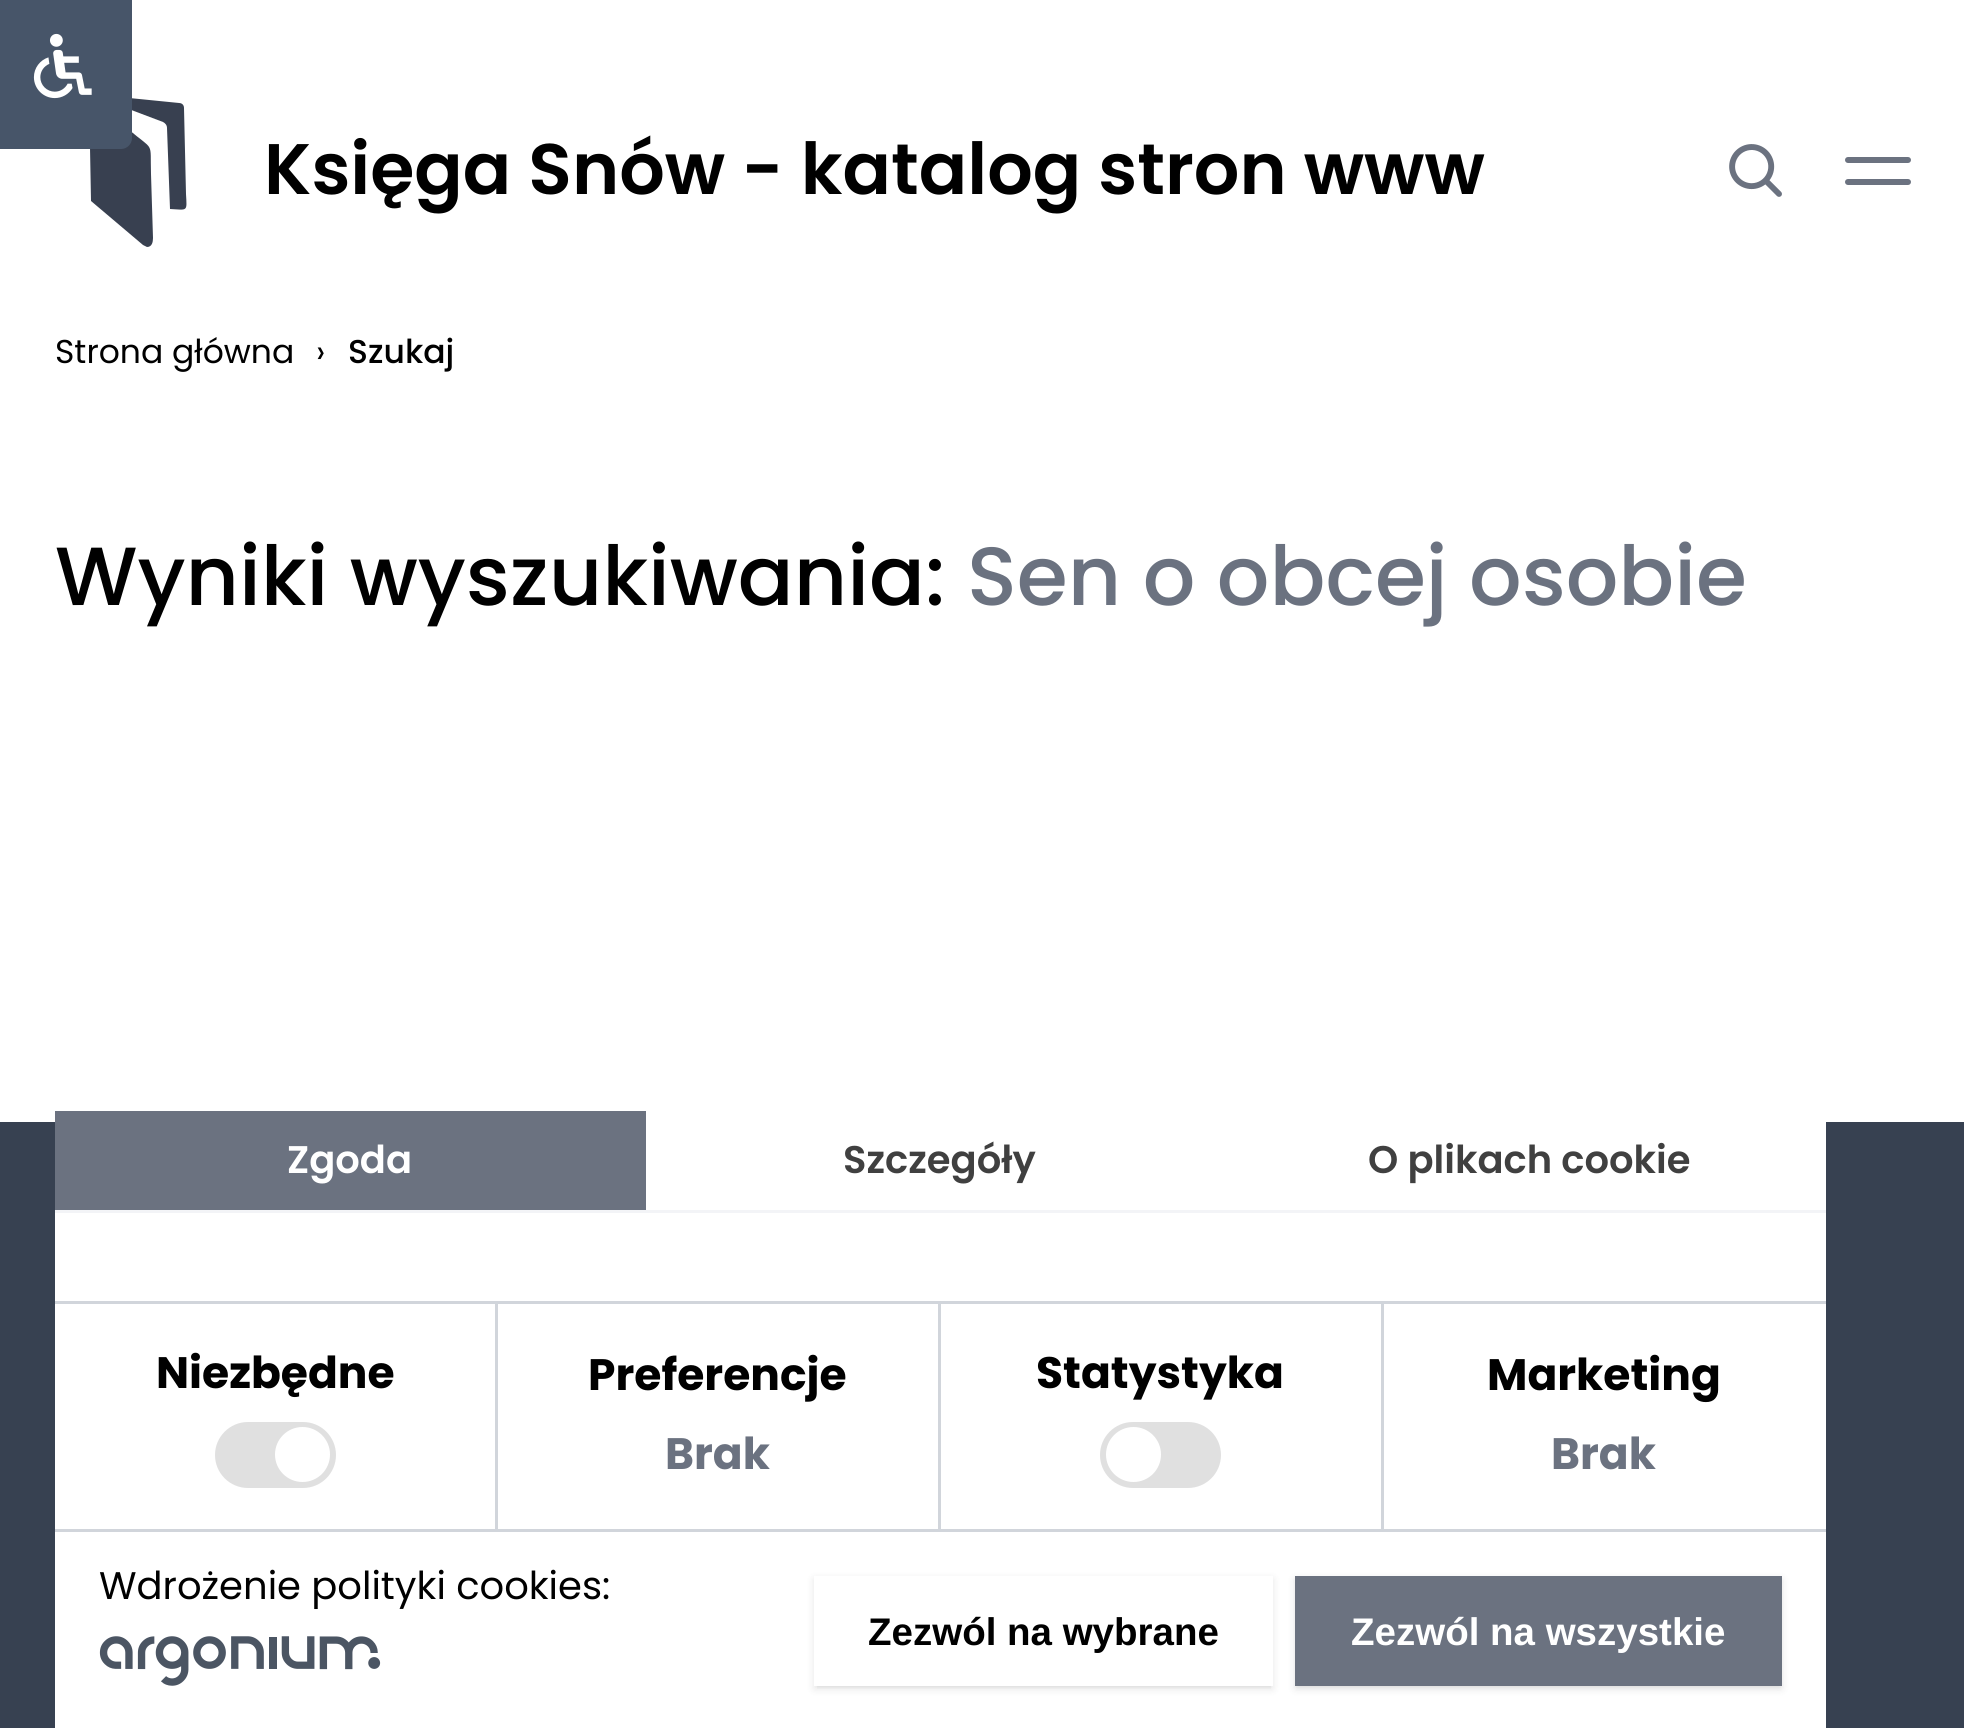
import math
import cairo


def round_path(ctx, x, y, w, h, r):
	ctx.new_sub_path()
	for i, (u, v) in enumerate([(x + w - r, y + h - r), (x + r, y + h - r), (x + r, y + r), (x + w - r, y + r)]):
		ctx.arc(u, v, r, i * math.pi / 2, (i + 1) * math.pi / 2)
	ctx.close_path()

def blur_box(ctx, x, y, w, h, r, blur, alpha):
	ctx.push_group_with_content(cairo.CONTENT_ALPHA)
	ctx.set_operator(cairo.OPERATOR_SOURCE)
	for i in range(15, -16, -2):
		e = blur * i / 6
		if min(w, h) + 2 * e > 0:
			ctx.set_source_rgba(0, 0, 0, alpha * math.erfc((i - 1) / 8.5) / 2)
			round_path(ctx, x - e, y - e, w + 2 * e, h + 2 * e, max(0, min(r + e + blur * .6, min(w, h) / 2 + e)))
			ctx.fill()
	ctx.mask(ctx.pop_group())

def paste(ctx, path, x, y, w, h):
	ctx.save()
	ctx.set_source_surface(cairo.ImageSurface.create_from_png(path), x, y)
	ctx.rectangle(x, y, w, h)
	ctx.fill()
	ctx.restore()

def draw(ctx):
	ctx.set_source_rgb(1, 1, 1)
	ctx.paint()
	ctx.set_source_rgb(0.22, 0.251, 0.314)
	ctx.new_path()
	ctx.move_to(186, 194)
	ctx.line_to(184, 108)
	ctx.curve_to(184, 105, 182, 103, 179, 103)
	ctx.line_to(89, 94)
	ctx.line_to(91, 201)
	ctx.line_to(143, 245)
	ctx.line_to(147, 247)
	ctx.curve_to(152, 247, 153, 242, 153, 238)
	ctx.line_to(151, 174)
	ctx.curve_to(150, 140, 155, 152, 128, 129)
	ctx.line_to(89, 94)
	ctx.line_to(163, 122)
	ctx.curve_to(165, 123, 167, 125, 167, 128)
	ctx.line_to(170, 209)
	ctx.curve_to(188, 210, 187, 212, 186, 194)
	ctx.close_path()
	ctx.fill()
	ctx.set_source_rgb(0.278, 0.333, 0.412)
	ctx.new_path()
	ctx.move_to(0, 0)
	ctx.line_to(132, 0)
	ctx.line_to(132, 138)
	ctx.curve_to(132, 144, 127, 149, 121, 149)
	ctx.line_to(0, 149)
	ctx.close_path()
	ctx.fill()
	paste(ctx, 'media/1.png', 33, 33, 59, 66)
	ctx.select_font_face('Poppins SemiBold')
	ctx.set_font_size(71.5)
	ctx.set_source_rgb(0, 0, 0)
	ctx.move_to(264, 194)
	ctx.show_text('Księga Snów - katalog stron www')
	paste(ctx, 'media/2.png', 1729, 144, 53, 53)
	ctx.set_source_rgb(0.42, 0.447, 0.502)
	round_path(ctx, 1845, 157, 66, 6, 3)
	ctx.fill()
	round_path(ctx, 1845, 179, 66, 6, 3)
	ctx.fill()
	ctx.select_font_face('Poppins')
	ctx.set_font_size(33)
	ctx.set_source_rgb(0, 0, 0)
	ctx.move_to(55, 363)
	ctx.show_text('Strona główna')
	ctx.move_to(316, 363)
	ctx.show_text('›')
	ctx.select_font_face('Poppins Medium')
	ctx.move_to(348, 363)
	ctx.show_text('Szukaj')
	ctx.set_font_size(82.5)
	ctx.move_to(55, 605)
	ctx.show_text('Wyniki wyszukiwania:')
	ctx.set_source_rgb(0.42, 0.447, 0.502)
	ctx.move_to(967, 605)
	ctx.show_text('Sen o obcej osobie')
	ctx.set_source_rgb(0.216, 0.255, 0.318)
	ctx.rectangle(0, 1122, 1964, 606)
	ctx.fill()
	ctx.set_source_rgb(1, 1, 1)
	ctx.rectangle(55, 1122, 1771, 606)
	ctx.fill()
	ctx.set_source_rgb(0.42, 0.447, 0.502)
	ctx.rectangle(55, 1111, 591, 99)
	ctx.fill()
	ctx.set_source_rgb(0.953, 0.957, 0.965)
	ctx.rectangle(55, 1210, 1771, 3)
	ctx.fill()
	ctx.select_font_face('Poppins SemiBold')
	ctx.set_font_size(38.5)
	ctx.set_source_rgb(1, 1, 1)
	ctx.move_to(287, 1173)
	ctx.show_text('Zgoda')
	ctx.set_source_rgb(0.251, 0.251, 0.251)
	ctx.move_to(843, 1173)
	ctx.show_text('Szczegóły')
	ctx.move_to(1368, 1173)
	ctx.show_text('O plikach cookie')
	ctx.set_source_rgb(0.82, 0.835, 0.859)
	ctx.rectangle(55, 1301, 1771, 3)
	ctx.rectangle(55, 1529, 1771, 3)
	ctx.rectangle(495, 1304, 3, 225)
	ctx.fill()
	ctx.select_font_face('Poppins', cairo.FONT_SLANT_NORMAL, cairo.FONT_WEIGHT_BOLD)
	ctx.set_font_size(44)
	ctx.set_source_rgb(0, 0, 0)
	ctx.move_to(156, 1388)
	ctx.show_text('Niezbędne')
	ctx.set_source_rgb(0.878, 0.878, 0.878)
	round_path(ctx, 215, 1422, 121, 66, 33)
	ctx.fill()
	ctx.set_source_rgb(1, 1, 1)
	ctx.arc(302.5, 1454.5, 27.5, 0, 2 * math.pi)
	ctx.fill()
	ctx.set_source_rgb(0.82, 0.835, 0.859)
	ctx.rectangle(938, 1304, 3, 225)
	ctx.fill()
	ctx.set_source_rgb(0, 0, 0)
	ctx.move_to(588, 1390)
	ctx.show_text('Preferencje')
	ctx.set_source_rgb(0.42, 0.447, 0.502)
	ctx.move_to(665, 1469)
	ctx.show_text('Brak')
	ctx.set_source_rgb(0.82, 0.835, 0.859)
	ctx.rectangle(1381, 1304, 3, 225)
	ctx.fill()
	ctx.set_source_rgb(0, 0, 0)
	ctx.move_to(1036, 1388)
	ctx.show_text('Statystyka')
	ctx.set_source_rgb(0.878, 0.878, 0.878)
	round_path(ctx, 1100, 1422, 121, 66, 33)
	ctx.fill()
	ctx.set_source_rgb(1, 1, 1)
	ctx.arc(1133.5, 1454.5, 27.5, 0, 2 * math.pi)
	ctx.fill()
	ctx.set_source_rgb(0, 0, 0)
	ctx.move_to(1487, 1390)
	ctx.show_text('Marketing')
	ctx.set_source_rgb(0.42, 0.447, 0.502)
	ctx.move_to(1551, 1469)
	ctx.show_text('Brak')
	ctx.select_font_face('Poppins')
	ctx.set_font_size(38.5)
	ctx.set_source_rgb(0, 0, 0)
	ctx.move_to(99, 1599)
	ctx.show_text('Wdrożenie polityki cookies:')
	paste(ctx, 'media/3.png', 99, 1636, 282, 50)
	ctx.save()
	ctx.set_fill_rule(cairo.FILL_RULE_EVEN_ODD)
	ctx.new_path()
	ctx.move_to(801, 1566)
	ctx.line_to(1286, 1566)
	ctx.line_to(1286, 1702)
	ctx.line_to(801, 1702)
	ctx.close_path()
	ctx.move_to(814, 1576)
	ctx.line_to(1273, 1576)
	ctx.line_to(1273, 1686)
	ctx.line_to(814, 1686)
	ctx.close_path()
	ctx.clip()
	ctx.set_source_rgb(0, 0, 0)
	blur_box(ctx, 814, 1579, 459, 110, 0, 4, 0.1)
	ctx.restore()
	ctx.save()
	ctx.rectangle(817, 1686, 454, 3)
	ctx.clip()
	ctx.set_source_rgb(0, 0, 0)
	blur_box(ctx, 817, 1581, 454, 105, 0, 3, 0.1)
	ctx.restore()
	ctx.select_font_face('Liberation Sans', cairo.FONT_SLANT_NORMAL, cairo.FONT_WEIGHT_BOLD)
	ctx.move_to(868, 1645)
	ctx.show_text('Zezwól na wybrane')
	ctx.set_source_rgb(0, 0, 0)
	blur_box(ctx, 1295, 1579, 487, 110, 0, 4, 0.1)
	blur_box(ctx, 1298, 1581, 481, 105, 0, 3, 0.1)
	ctx.set_source_rgb(0.42, 0.447, 0.502)
	ctx.rectangle(1295, 1576, 487, 110)
	ctx.fill()
	ctx.set_source_rgb(1, 1, 1)
	ctx.move_to(1351, 1645)
	ctx.show_text('Zezwól na wszystkie')


surface = cairo.ImageSurface(cairo.FORMAT_RGB24, 1964, 1728)
ctx = cairo.Context(surface)
options = cairo.FontOptions()
options.set_hint_metrics(cairo.HINT_METRICS_OFF)
options.set_hint_style(cairo.HINT_STYLE_NONE)
ctx.set_font_options(options)
ctx.set_miter_limit(4)
draw(ctx)
surface.write_to_png('image.png')
